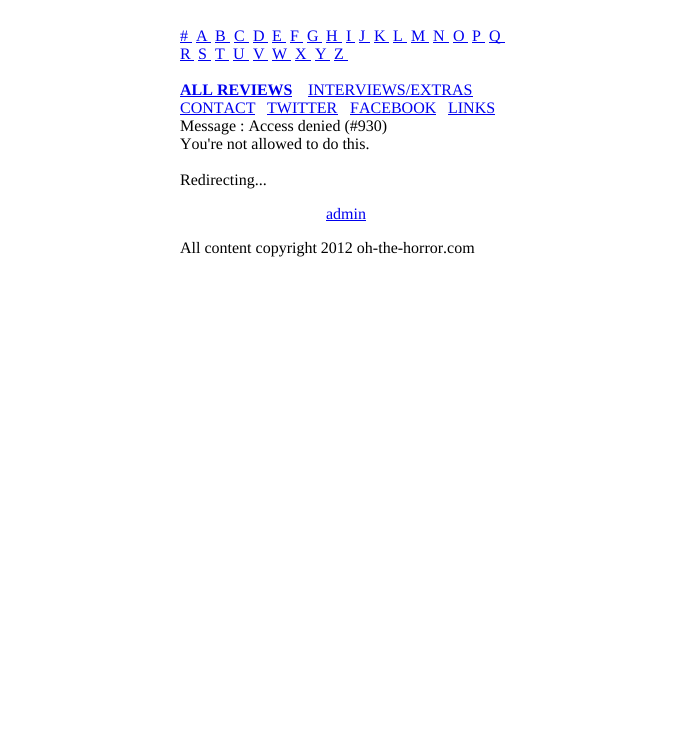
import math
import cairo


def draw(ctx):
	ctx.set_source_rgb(1, 1, 1)
	ctx.paint()
	ctx.select_font_face('Liberation Serif')
	ctx.set_font_size(16)
	ctx.set_source_rgb(0, 0, 0.933)
	ctx.move_to(180, 41)
	ctx.show_text('#')
	ctx.rectangle(180, 42, 12, 1)
	ctx.fill()
	ctx.move_to(196, 41)
	ctx.show_text('A')
	ctx.rectangle(196, 42, 15, 1)
	ctx.fill()
	ctx.move_to(215, 41)
	ctx.show_text('B')
	ctx.rectangle(215, 42, 15, 1)
	ctx.fill()
	ctx.move_to(234, 41)
	ctx.show_text('C')
	ctx.rectangle(234, 42, 15, 1)
	ctx.fill()
	ctx.move_to(253, 41)
	ctx.show_text('D')
	ctx.rectangle(253, 42, 15, 1)
	ctx.fill()
	ctx.move_to(272, 41)
	ctx.show_text('E')
	ctx.rectangle(272, 42, 14, 1)
	ctx.fill()
	ctx.move_to(290, 41)
	ctx.show_text('F')
	ctx.rectangle(290, 42, 13, 1)
	ctx.fill()
	ctx.move_to(307, 41)
	ctx.show_text('G')
	ctx.rectangle(307, 42, 15, 1)
	ctx.fill()
	ctx.move_to(326, 41)
	ctx.show_text('H')
	ctx.rectangle(326, 42, 16, 1)
	ctx.fill()
	ctx.move_to(346, 41)
	ctx.show_text('I')
	ctx.rectangle(346, 42, 9, 1)
	ctx.fill()
	ctx.move_to(359, 41)
	ctx.show_text('J')
	ctx.rectangle(359, 42, 11, 1)
	ctx.fill()
	ctx.move_to(374, 41)
	ctx.show_text('K')
	ctx.rectangle(374, 42, 15, 1)
	ctx.fill()
	ctx.move_to(393, 41)
	ctx.show_text('L')
	ctx.rectangle(393, 42, 14, 1)
	ctx.fill()
	ctx.move_to(411, 41)
	ctx.show_text('M')
	ctx.rectangle(411, 42, 18, 1)
	ctx.fill()
	ctx.move_to(433, 41)
	ctx.show_text('N')
	ctx.rectangle(433, 42, 16, 1)
	ctx.fill()
	ctx.move_to(453, 41)
	ctx.show_text('O')
	ctx.rectangle(453, 42, 15, 1)
	ctx.fill()
	ctx.move_to(472, 41)
	ctx.show_text('P')
	ctx.rectangle(472, 42, 13, 1)
	ctx.fill()
	ctx.rectangle(489, 42, 16, 1)
	ctx.fill()
	ctx.move_to(489, 41)
	ctx.show_text('Q')
	ctx.move_to(180, 59)
	ctx.show_text('R')
	ctx.rectangle(180, 60, 14, 1)
	ctx.fill()
	ctx.move_to(198, 59)
	ctx.show_text('S')
	ctx.rectangle(198, 60, 13, 1)
	ctx.fill()
	ctx.move_to(215, 59)
	ctx.show_text('T')
	ctx.rectangle(215, 60, 14, 1)
	ctx.fill()
	ctx.move_to(233, 59)
	ctx.show_text('U')
	ctx.rectangle(233, 60, 16, 1)
	ctx.fill()
	ctx.move_to(253, 59)
	ctx.show_text('V')
	ctx.rectangle(253, 60, 15, 1)
	ctx.fill()
	ctx.move_to(272, 59)
	ctx.show_text('W')
	ctx.rectangle(272, 60, 19, 1)
	ctx.fill()
	ctx.move_to(295, 59)
	ctx.show_text('X')
	ctx.rectangle(295, 60, 16, 1)
	ctx.fill()
	ctx.move_to(315, 59)
	ctx.show_text('Y')
	ctx.rectangle(315, 60, 15, 1)
	ctx.fill()
	ctx.move_to(334, 59)
	ctx.show_text('Z')
	ctx.rectangle(334, 60, 14, 1)
	ctx.fill()
	ctx.select_font_face('Liberation Serif', cairo.FONT_SLANT_NORMAL, cairo.FONT_WEIGHT_BOLD)
	ctx.move_to(180, 95)
	ctx.show_text('ALL REVIEWS')
	ctx.rectangle(180, 96, 112, 1)
	ctx.fill()
	ctx.select_font_face('Liberation Serif')
	ctx.move_to(308, 95)
	ctx.show_text('INTERVIEWS/EXTRAS')
	ctx.rectangle(308, 96, 165, 1)
	ctx.fill()
	ctx.move_to(180, 113)
	ctx.show_text('CONTACT')
	ctx.rectangle(180, 114, 75, 1)
	ctx.fill()
	ctx.move_to(267, 113)
	ctx.show_text('TWITTER')
	ctx.rectangle(267, 114, 71, 1)
	ctx.fill()
	ctx.move_to(350, 113)
	ctx.show_text('FACEBOOK')
	ctx.rectangle(350, 114, 86, 1)
	ctx.fill()
	ctx.move_to(448, 113)
	ctx.show_text('LINKS')
	ctx.rectangle(448, 114, 47, 1)
	ctx.fill()
	ctx.set_source_rgb(0, 0, 0)
	for x, y, s in [
		(180, 131, 'Message : Access denied (#930)'),
		(180, 149, 'You\'re not allowed to do this.'),
		(180, 185, 'Redirecting...'),
	]:
		ctx.move_to(x, y)
		ctx.show_text(s)
	ctx.set_source_rgb(0, 0, 0.933)
	ctx.move_to(326, 219)
	ctx.show_text('admin')
	ctx.rectangle(326, 220, 40, 1)
	ctx.fill()
	ctx.set_source_rgb(0, 0, 0)
	ctx.move_to(180, 253)
	ctx.show_text('All content copyright 2012 oh-the-horror.com')


surface = cairo.ImageSurface(cairo.FORMAT_RGB24, 691, 743)
ctx = cairo.Context(surface)
options = cairo.FontOptions()
options.set_hint_metrics(cairo.HINT_METRICS_OFF)
options.set_hint_style(cairo.HINT_STYLE_NONE)
ctx.set_font_options(options)
ctx.set_miter_limit(4)
draw(ctx)
surface.write_to_png('image.png')
